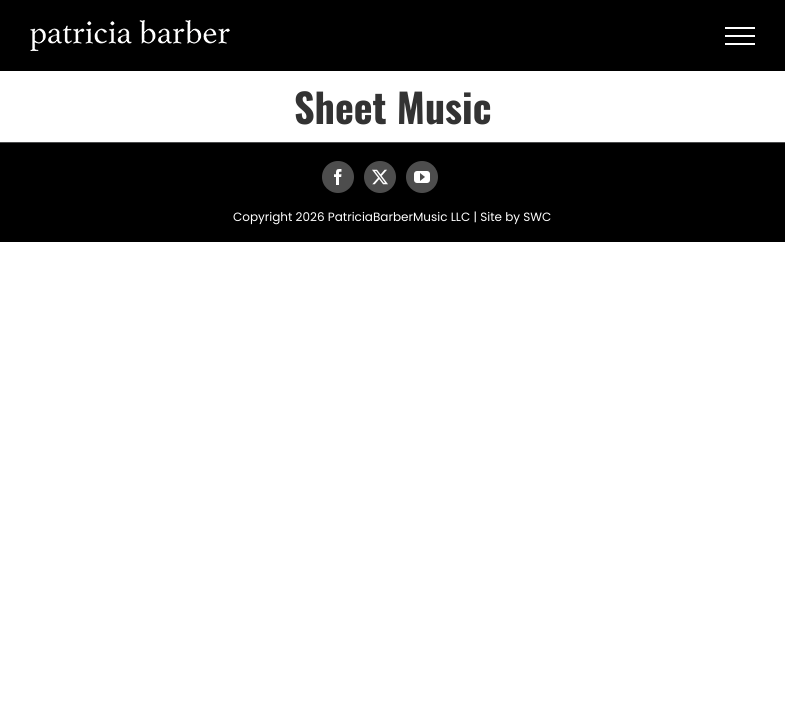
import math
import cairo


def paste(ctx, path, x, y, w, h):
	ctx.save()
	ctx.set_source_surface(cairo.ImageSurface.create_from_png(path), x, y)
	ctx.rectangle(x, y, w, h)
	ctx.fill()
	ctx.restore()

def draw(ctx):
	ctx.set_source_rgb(1, 1, 1)
	ctx.paint()
	ctx.set_source_rgb(0, 0, 0)
	ctx.rectangle(0, 0, 785, 71)
	ctx.fill()
	paste(ctx, 'media/1.png', 30, 20, 200, 31)
	ctx.set_source_rgb(1, 1, 1)
	ctx.rectangle(725, 27, 30, 2)
	ctx.rectangle(725, 35, 30, 2)
	ctx.rectangle(725, 43, 30, 2)
	ctx.fill()
	ctx.select_font_face('Oswald', cairo.FONT_SLANT_NORMAL, cairo.FONT_WEIGHT_BOLD)
	ctx.set_font_size(40)
	ctx.set_source_rgb(0.2, 0.2, 0.2)
	ctx.move_to(294, 124)
	ctx.show_text('Sheet Music')
	ctx.set_source_rgb(0, 0, 0)
	ctx.rectangle(0, 143, 785, 99)
	ctx.fill()
	ctx.set_source_rgb(0.294, 0.298, 0.302)
	ctx.rectangle(0, 142, 785, 1)
	ctx.fill()
	ctx.set_source_rgb(0.302, 0.302, 0.302)
	ctx.arc(338, 177, 16, 0, 2 * math.pi)
	ctx.fill()
	paste(ctx, 'media/2.png', 334, 169, 8, 16)
	ctx.arc(380, 177, 16, 0, 2 * math.pi)
	ctx.fill()
	paste(ctx, 'media/3.png', 372, 169, 16, 16)
	ctx.arc(422, 177, 16, 0, 2 * math.pi)
	ctx.fill()
	paste(ctx, 'media/4.png', 414, 171, 16, 12)
	ctx.select_font_face('Poppins')
	ctx.set_font_size(12)
	ctx.set_source_rgb(1, 1, 1)
	ctx.move_to(233, 221)
	ctx.show_text('Copyright 2026 PatriciaBarberMusic LLC | Site by SWC')


surface = cairo.ImageSurface(cairo.FORMAT_RGB24, 785, 725)
ctx = cairo.Context(surface)
options = cairo.FontOptions()
options.set_hint_metrics(cairo.HINT_METRICS_OFF)
options.set_hint_style(cairo.HINT_STYLE_NONE)
ctx.set_font_options(options)
ctx.set_miter_limit(4)
draw(ctx)
surface.write_to_png('image.png')
